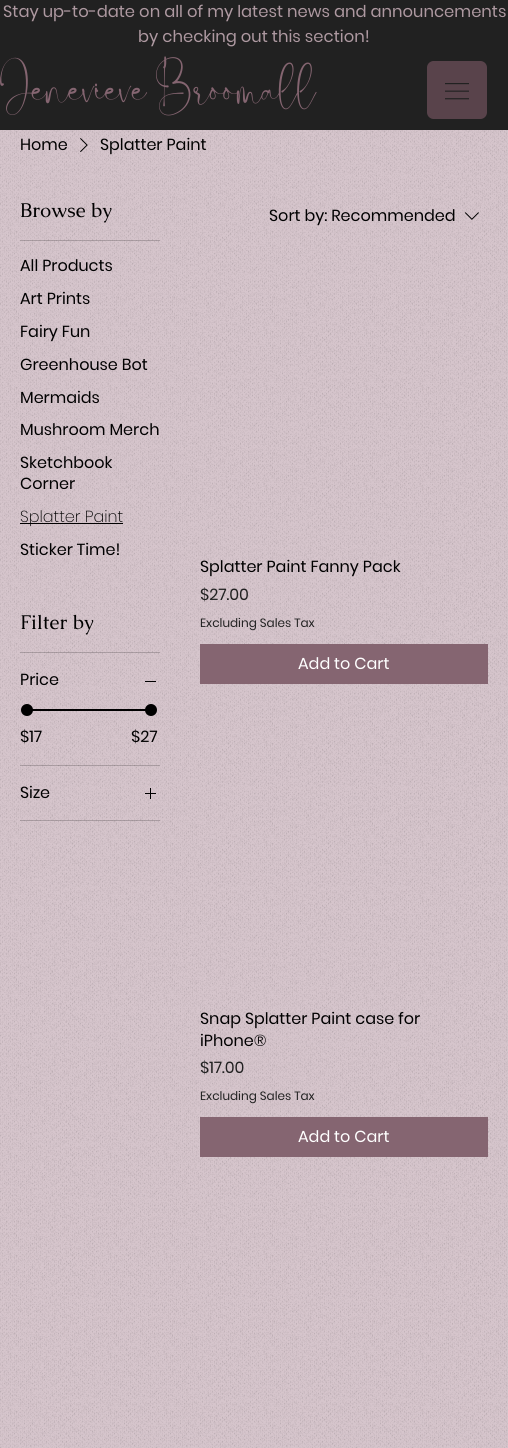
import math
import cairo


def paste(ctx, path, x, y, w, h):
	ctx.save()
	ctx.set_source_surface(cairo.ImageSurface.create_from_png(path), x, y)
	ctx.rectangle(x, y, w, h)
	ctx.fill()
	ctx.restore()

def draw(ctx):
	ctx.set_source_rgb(0.129, 0.129, 0.129)
	ctx.paint()
	ctx.select_font_face('Poppins')
	ctx.set_font_size(16.35)
	ctx.set_source_rgb(0.682, 0.6, 0.631)
	ctx.move_to(3, 17)
	ctx.show_text('Stay up-to-date on all of my latest news and announcements')
	ctx.move_to(138, 42)
	ctx.show_text('by checking out this section!')
	paste(ctx, 'media/1.png', 0, 56, 317, 60)
	paste(ctx, 'media/2.png', 427, 61, 60, 58)
	ctx.set_source_rgb(0.839, 0.773, 0.8)
	ctx.rectangle(0, 130, 508, 1318)
	ctx.fill()
	paste(ctx, 'media/3.png', 0, 130, 508, 1318)
	ctx.set_font_size(16)
	ctx.set_source_rgb(0, 0, 0)
	ctx.move_to(20, 150)
	ctx.show_text('Home')
	paste(ctx, 'media/4.png', 80, 138, 8, 14)
	ctx.move_to(100, 150)
	ctx.show_text('Splatter Paint')
	ctx.set_source_rgba(0, 0, 0, 0.2)
	ctx.rectangle(20, 240, 140, 1)
	ctx.fill()
	ctx.select_font_face('Caudex')
	ctx.set_font_size(20)
	ctx.set_source_rgb(0, 0, 0)
	ctx.move_to(20, 217)
	ctx.show_text('Browse by')
	ctx.select_font_face('Poppins')
	ctx.set_font_size(16)
	for x, y, s in [
		(20, 271, 'All Products'),
		(20, 304, 'Art Prints'),
		(20, 337, 'Fairy Fun'),
		(20, 370, 'Greenhouse Bot'),
		(20, 403, 'Mermaids'),
		(20, 435, 'Mushroom Merch'),
		(20, 468, 'Sketchbook'),
		(20, 489, 'Corner'),
	]:
		ctx.move_to(x, y)
		ctx.show_text(s)
	ctx.rectangle(20, 523, 103, 1)
	ctx.fill()
	ctx.select_font_face('Poppins ExtraLight')
	ctx.move_to(20, 522)
	ctx.show_text('Splatter Paint')
	ctx.select_font_face('Poppins')
	ctx.move_to(20, 555)
	ctx.show_text('Sticker Time!')
	ctx.set_source_rgba(0, 0, 0, 0.2)
	ctx.rectangle(20, 652, 140, 1)
	ctx.fill()
	ctx.select_font_face('Caudex')
	ctx.set_font_size(20)
	ctx.set_source_rgb(0, 0, 0)
	ctx.move_to(20, 629)
	ctx.show_text('Filter by')
	ctx.set_source_rgba(0, 0, 0, 0.2)
	ctx.rectangle(20, 765, 140, 1)
	ctx.fill()
	ctx.select_font_face('Poppins')
	ctx.set_font_size(16)
	ctx.set_source_rgb(0, 0, 0)
	ctx.move_to(20, 685)
	ctx.show_text('Price')
	ctx.rectangle(145, 681, 11, 1)
	ctx.fill()
	ctx.rectangle(26, 709, 124, 2)
	ctx.fill()
	ctx.arc(27, 710, 6, 0, 2 * math.pi)
	ctx.fill()
	ctx.arc(151, 710, 6, 0, 2 * math.pi)
	ctx.fill()
	ctx.move_to(20, 742)
	ctx.show_text('$17')
	ctx.move_to(131, 742)
	ctx.show_text('$27')
	ctx.set_source_rgba(0, 0, 0, 0.2)
	ctx.rectangle(20, 820, 140, 1)
	ctx.fill()
	ctx.set_source_rgb(0, 0, 0)
	ctx.move_to(20, 798)
	ctx.show_text('Size')
	paste(ctx, 'media/5.png', 145, 788, 11, 11)
	ctx.move_to(269, 221)
	ctx.show_text('Sort by: Recommended')
	paste(ctx, 'media/6.png', 464, 212, 15, 8)
	ctx.move_to(200, 572)
	ctx.show_text('Splatter Paint Fanny Pack')
	ctx.set_source_rgb(0.129, 0.129, 0.129)
	ctx.move_to(200, 600)
	ctx.show_text('$27.00')
	ctx.set_font_size(12)
	ctx.move_to(200, 627)
	ctx.show_text('Excluding Sales Tax')
	ctx.set_source_rgb(0.522, 0.396, 0.443)
	ctx.rectangle(200, 644, 288, 40)
	ctx.fill()
	ctx.set_font_size(16)
	ctx.set_source_rgb(1, 1, 1)
	ctx.move_to(298, 669)
	ctx.show_text('Add to Cart')
	ctx.set_source_rgb(0, 0, 0)
	ctx.move_to(200, 1024)
	ctx.show_text('Snap Splatter Paint case for')
	ctx.move_to(200, 1046)
	ctx.show_text('iPhone®')
	ctx.set_source_rgb(0.129, 0.129, 0.129)
	ctx.move_to(200, 1073)
	ctx.show_text('$17.00')
	ctx.set_font_size(12)
	ctx.move_to(200, 1100)
	ctx.show_text('Excluding Sales Tax')
	ctx.set_source_rgb(0.522, 0.396, 0.443)
	ctx.rectangle(200, 1117, 288, 40)
	ctx.fill()
	ctx.set_font_size(16)
	ctx.set_source_rgb(1, 1, 1)
	ctx.move_to(298, 1142)
	ctx.show_text('Add to Cart')


surface = cairo.ImageSurface(cairo.FORMAT_RGB24, 508, 1448)
ctx = cairo.Context(surface)
options = cairo.FontOptions()
options.set_hint_metrics(cairo.HINT_METRICS_OFF)
options.set_hint_style(cairo.HINT_STYLE_NONE)
ctx.set_font_options(options)
ctx.set_miter_limit(4)
draw(ctx)
surface.write_to_png('image.png')
